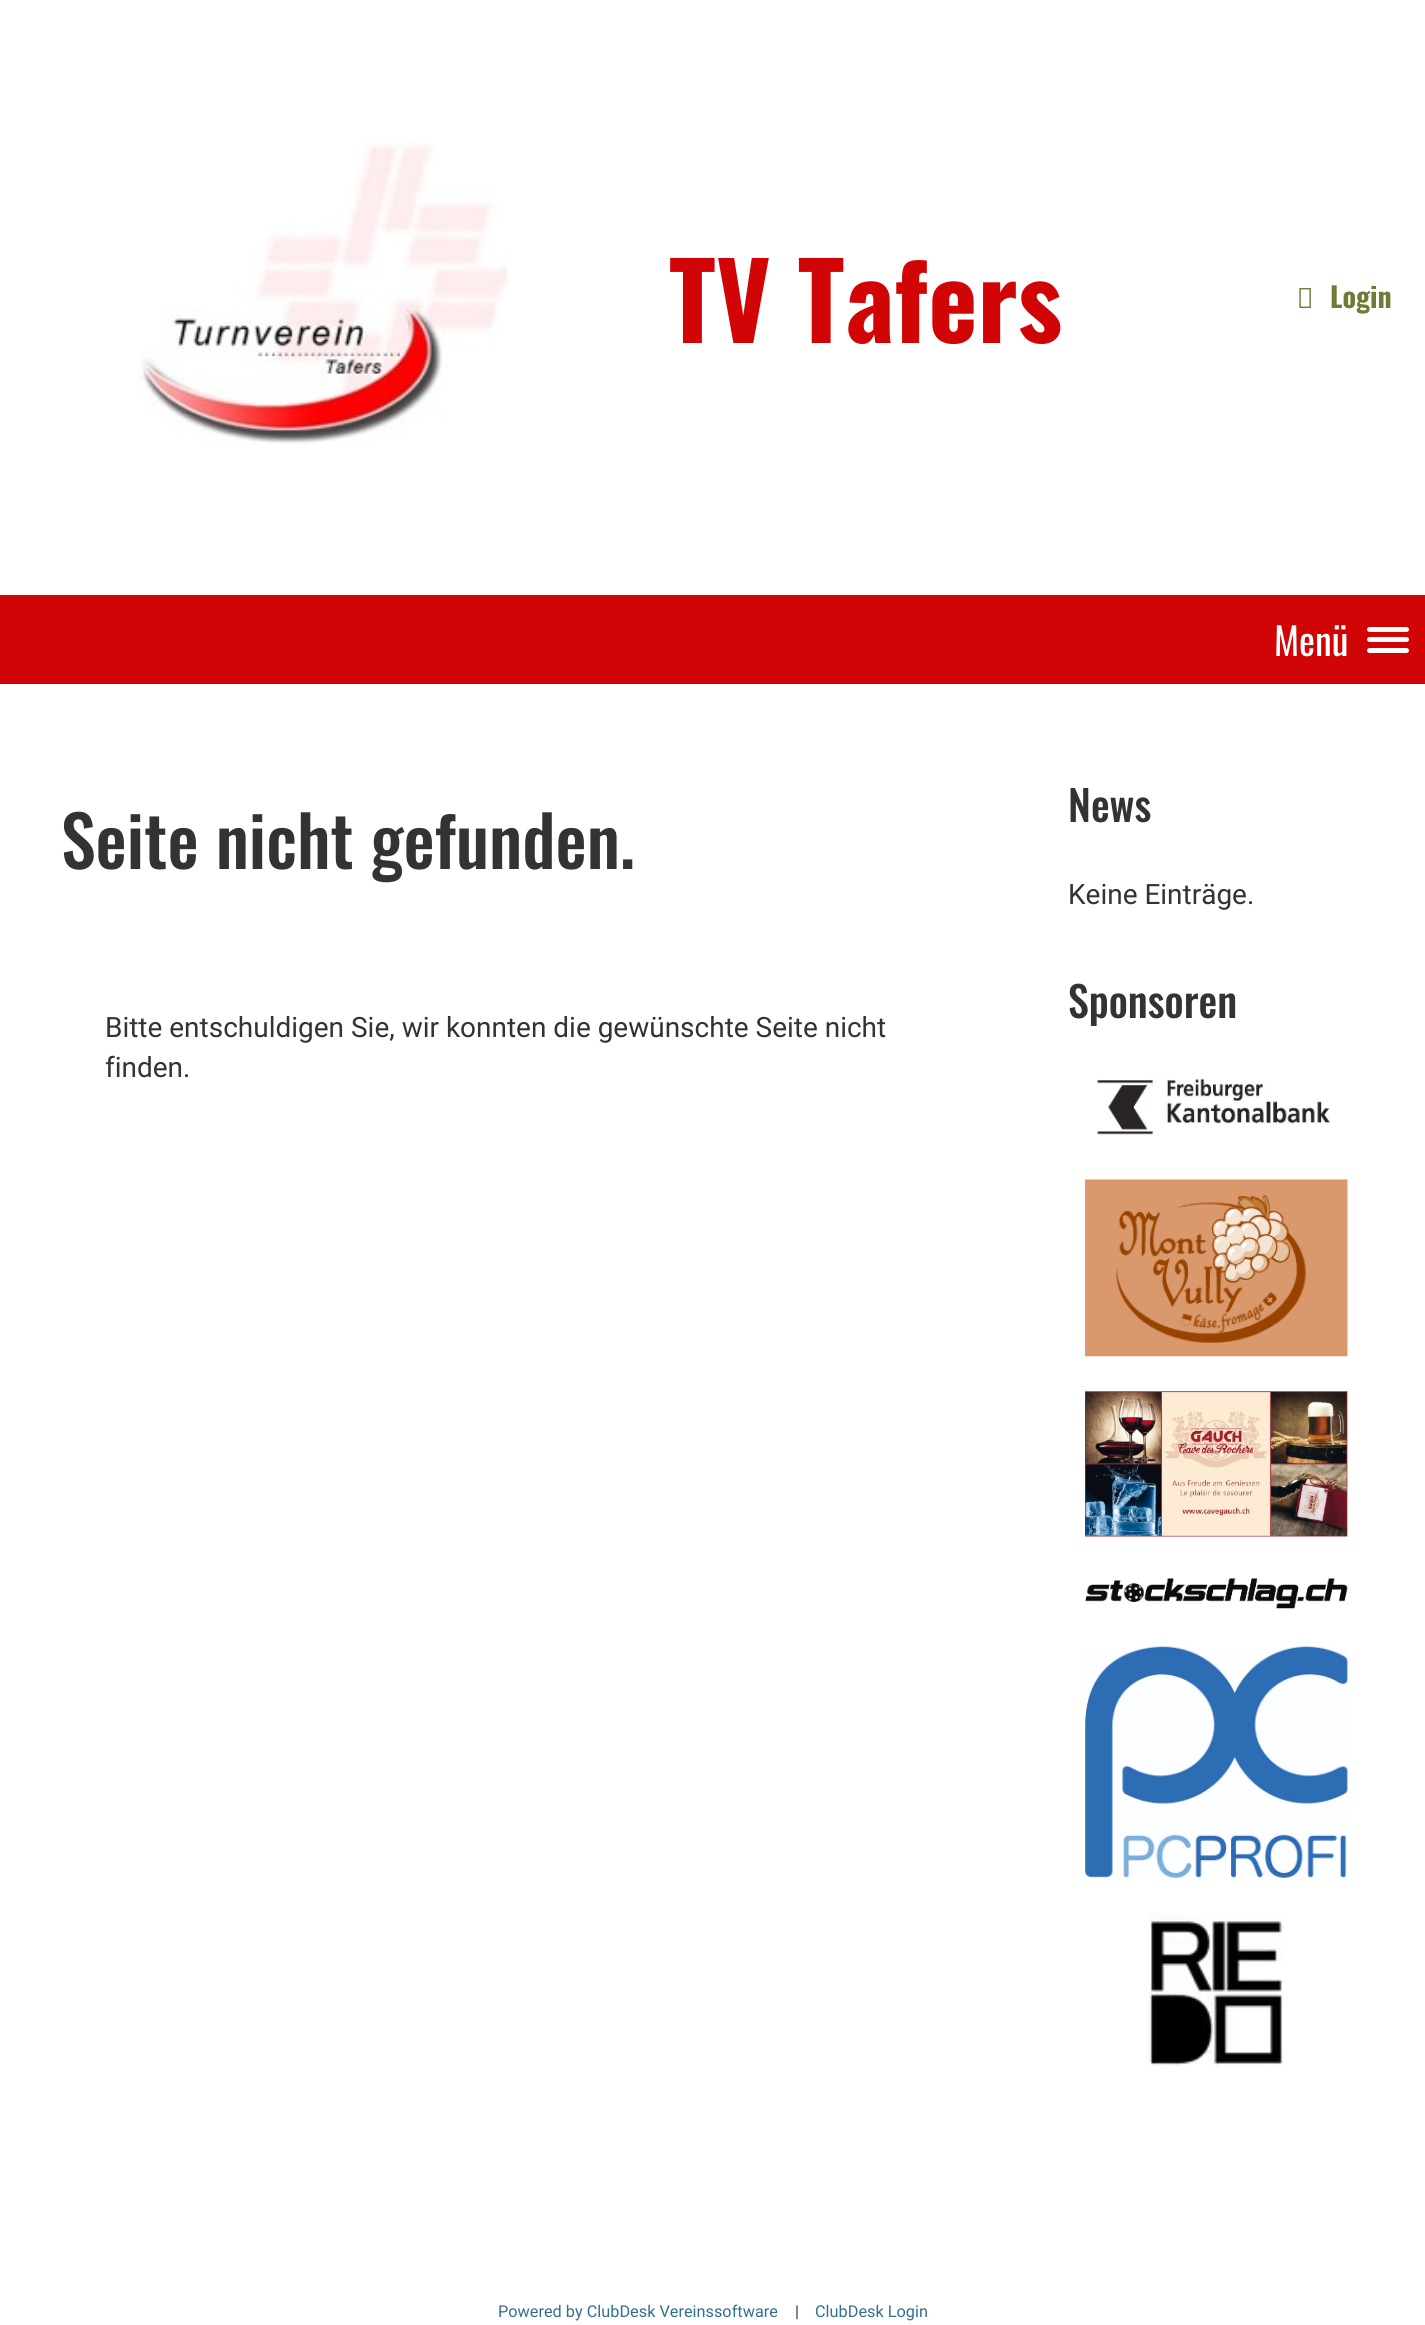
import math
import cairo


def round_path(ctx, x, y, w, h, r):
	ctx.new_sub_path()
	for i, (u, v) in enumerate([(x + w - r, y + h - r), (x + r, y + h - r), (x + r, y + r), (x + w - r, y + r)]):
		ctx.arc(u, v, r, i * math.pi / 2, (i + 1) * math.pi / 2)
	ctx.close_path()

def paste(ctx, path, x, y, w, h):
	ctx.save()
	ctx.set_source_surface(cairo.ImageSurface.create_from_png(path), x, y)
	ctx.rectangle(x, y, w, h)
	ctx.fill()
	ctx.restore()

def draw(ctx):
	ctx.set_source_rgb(1, 1, 1)
	ctx.paint()
	paste(ctx, 'media/1.png', 137, 139, 373, 305)
	ctx.select_font_face('Oswald', cairo.FONT_SLANT_NORMAL, cairo.FONT_WEIGHT_BOLD)
	ctx.set_font_size(105)
	ctx.set_source_rgb(0.82, 0.02, 0.02)
	ctx.move_to(669, 343)
	ctx.show_text('TV Tafers')
	paste(ctx, 'media/2.png', 1299, 288, 12, 20)
	ctx.set_font_size(28)
	ctx.set_source_rgb(0.439, 0.478, 0.208)
	ctx.move_to(1330, 308)
	ctx.show_text('Login')
	ctx.set_source_rgb(0.82, 0.02, 0.02)
	ctx.rectangle(0, 595, 1425, 89)
	ctx.fill()
	ctx.select_font_face('Oswald')
	ctx.set_font_size(38)
	ctx.set_source_rgb(1, 1, 1)
	ctx.move_to(1274, 656)
	ctx.show_text('Menü')
	round_path(ctx, 1367, 627, 42, 5, 2.5)
	ctx.fill()
	round_path(ctx, 1367, 637, 42, 5, 2.5)
	ctx.fill()
	round_path(ctx, 1367, 648, 42, 5, 2.5)
	ctx.fill()
	ctx.select_font_face('Oswald Medium')
	ctx.set_font_size(70)
	ctx.set_source_rgb(0.2, 0.2, 0.2)
	ctx.move_to(61, 869)
	ctx.show_text('Seite nicht gefunden.')
	ctx.select_font_face('Roboto')
	ctx.set_font_size(28)
	ctx.move_to(105, 1037)
	ctx.show_text('Bitte entschuldigen Sie, wir konnten die gewünschte Seite nicht')
	ctx.move_to(105, 1077)
	ctx.show_text('finden.')
	ctx.select_font_face('Oswald Medium')
	ctx.set_font_size(42)
	ctx.move_to(1068, 822)
	ctx.show_text('News')
	ctx.select_font_face('Roboto')
	ctx.set_font_size(28)
	ctx.move_to(1068, 904)
	ctx.show_text('Keine Einträge.')
	ctx.select_font_face('Oswald Medium')
	ctx.set_font_size(42)
	ctx.move_to(1068, 1018)
	ctx.show_text('Sponsoren')
	paste(ctx, 'media/3.png', 1096, 1079, 234, 56)
	paste(ctx, 'media/4.png', 1085, 1179, 263, 178)
	paste(ctx, 'media/5.png', 1085, 1391, 263, 146)
	paste(ctx, 'media/6.png', 1085, 1578, 263, 31)
	paste(ctx, 'media/7.png', 1085, 1646, 263, 232)
	paste(ctx, 'media/8.png', 1148, 1913, 135, 154)
	ctx.select_font_face('Roboto')
	ctx.set_font_size(16.3)
	ctx.set_source_rgb(0.2, 0.439, 0.549)
	ctx.move_to(498, 2317)
	ctx.show_text('Powered by ClubDesk Vereinssoftware')
	ctx.set_source_rgb(0.2, 0.2, 0.2)
	ctx.move_to(795, 2317)
	ctx.show_text('|')
	ctx.set_source_rgb(0.2, 0.439, 0.549)
	ctx.move_to(815, 2317)
	ctx.show_text('ClubDesk Login')


surface = cairo.ImageSurface(cairo.FORMAT_RGB24, 1425, 2325)
ctx = cairo.Context(surface)
options = cairo.FontOptions()
options.set_hint_metrics(cairo.HINT_METRICS_OFF)
options.set_hint_style(cairo.HINT_STYLE_NONE)
ctx.set_font_options(options)
ctx.set_miter_limit(4)
draw(ctx)
surface.write_to_png('image.png')
